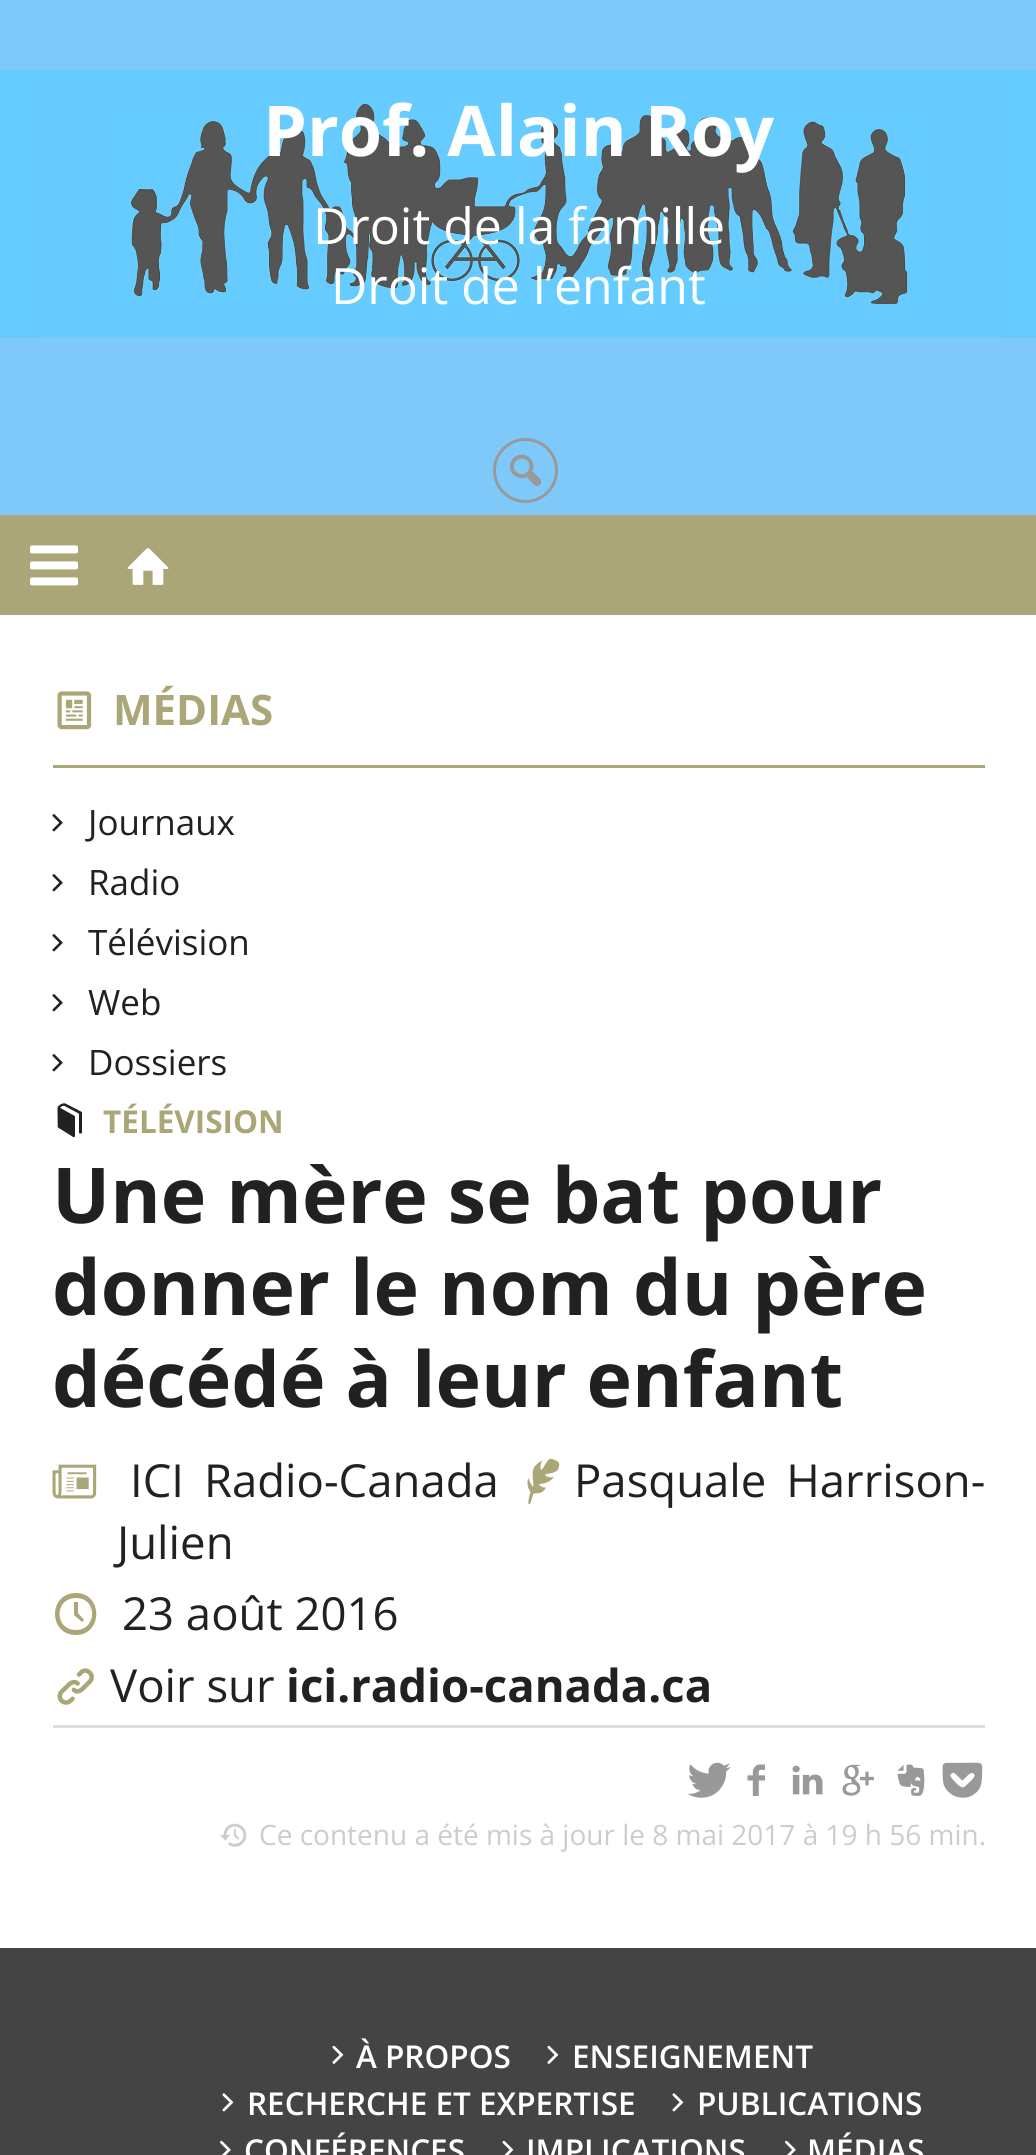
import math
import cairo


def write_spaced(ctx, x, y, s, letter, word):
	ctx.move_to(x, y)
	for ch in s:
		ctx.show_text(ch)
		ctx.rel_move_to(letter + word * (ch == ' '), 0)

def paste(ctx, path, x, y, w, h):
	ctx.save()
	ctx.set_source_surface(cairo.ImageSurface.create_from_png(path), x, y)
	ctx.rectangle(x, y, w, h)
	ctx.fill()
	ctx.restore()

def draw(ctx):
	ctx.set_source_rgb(1, 1, 1)
	ctx.paint()
	ctx.set_source_rgb(0.498, 0.788, 0.98)
	ctx.rectangle(0, 0, 1036, 515)
	ctx.fill()
	paste(ctx, 'media/1.png', 0, 69, 1036, 268)
	ctx.select_font_face('Open Sans', cairo.FONT_SLANT_NORMAL, cairo.FONT_WEIGHT_BOLD)
	ctx.set_font_size(70)
	ctx.set_source_rgb(1, 1, 1)
	ctx.move_to(263, 156)
	ctx.show_text('Prof. Alain Roy')
	ctx.select_font_face('Open Sans')
	ctx.set_font_size(50)
	ctx.move_to(313, 244)
	ctx.show_text('Droit de la famille')
	ctx.move_to(331, 304)
	ctx.show_text('Droit de l’enfant')
	ctx.new_path()
	ctx.arc(525.5, 470.5, 31, 0, 2 * math.pi)
	ctx.set_source_rgb(0.6, 0.6, 0.6)
	ctx.set_line_width(3)
	ctx.stroke()
	paste(ctx, 'media/2.png', 510, 454, 32, 32)
	ctx.set_source_rgb(0.667, 0.651, 0.467)
	ctx.rectangle(0, 515, 1036, 100)
	ctx.fill()
	paste(ctx, 'media/3.png', 30, 545, 48, 41)
	paste(ctx, 'media/4.png', 127, 548, 42, 37)
	ctx.rectangle(53, 765, 932, 3)
	ctx.fill()
	paste(ctx, 'media/5.png', 57, 691, 35, 39)
	ctx.select_font_face('Open Sans', cairo.FONT_SLANT_NORMAL, cairo.FONT_WEIGHT_BOLD)
	ctx.set_font_size(42)
	ctx.move_to(113, 725)
	ctx.show_text('MÉDIAS')
	paste(ctx, 'media/6.png', 52, 814, 11, 18)
	ctx.select_font_face('Open Sans')
	ctx.set_font_size(35)
	ctx.set_source_rgb(0.129, 0.129, 0.129)
	ctx.move_to(88, 835)
	ctx.show_text('Journaux')
	paste(ctx, 'media/6.png', 52, 874, 11, 18)
	ctx.move_to(88, 895)
	ctx.show_text('Radio')
	paste(ctx, 'media/6.png', 52, 934, 11, 18)
	ctx.move_to(88, 955)
	ctx.show_text('Télévision')
	paste(ctx, 'media/6.png', 52, 994, 11, 18)
	ctx.move_to(88, 1015)
	ctx.show_text('Web')
	paste(ctx, 'media/6.png', 52, 1054, 11, 18)
	ctx.move_to(88, 1075)
	ctx.show_text('Dossiers')
	paste(ctx, 'media/7.png', 57, 1103, 25, 35)
	ctx.select_font_face('Open Sans', cairo.FONT_SLANT_NORMAL, cairo.FONT_WEIGHT_BOLD)
	ctx.set_font_size(31.5)
	ctx.set_source_rgb(0.667, 0.651, 0.467)
	ctx.move_to(103, 1133)
	ctx.show_text('TÉLÉVISION')
	ctx.set_font_size(77)
	ctx.set_source_rgb(0.129, 0.129, 0.129)
	for x, y, s in [
		(52, 1223, 'Une mère se bat pour'),
		(52, 1315, 'donner le nom du père'),
		(52, 1407, 'décédé à leur enfant'),
	]:
		ctx.move_to(x, y)
		ctx.show_text(s)
	paste(ctx, 'media/8.png', 52, 1464, 45, 35)
	ctx.select_font_face('Open Sans')
	ctx.set_font_size(45.5)
	write_spaced(ctx, 130, 1497, 'ICI Radio-Canada', 0, 8)
	paste(ctx, 'media/9.png', 527, 1458, 33, 47)
	write_spaced(ctx, 574, 1497, 'Pasquale Harrison-', 0, 8)
	ctx.move_to(117, 1559)
	ctx.show_text('Julien')
	ctx.set_source_rgb(0.667, 0.651, 0.467)
	ctx.new_path()
	ctx.move_to(76, 1593)
	ctx.curve_to(103, 1593, 103, 1635, 76, 1635)
	ctx.curve_to(48, 1635, 48, 1593, 76, 1593)
	ctx.close_path()
	ctx.move_to(76, 1630)
	ctx.curve_to(97, 1630, 98, 1598, 76, 1598)
	ctx.curve_to(54, 1598, 54, 1630, 76, 1630)
	ctx.close_path()
	ctx.move_to(78, 1602)
	ctx.line_to(78, 1613)
	ctx.line_to(84, 1620)
	ctx.line_to(82, 1622)
	ctx.line_to(74, 1615)
	ctx.line_to(74, 1602)
	ctx.close_path()
	ctx.fill()
	ctx.set_source_rgb(0.129, 0.129, 0.129)
	ctx.move_to(122, 1630)
	ctx.show_text('23 août 2016')
	paste(ctx, 'media/10.png', 57, 1668, 37, 37)
	ctx.move_to(110, 1702)
	ctx.show_text('Voir sur')
	ctx.select_font_face('Open Sans', cairo.FONT_SLANT_NORMAL, cairo.FONT_WEIGHT_BOLD)
	ctx.move_to(286, 1702)
	ctx.show_text('ici.radio-canada.ca')
	ctx.set_source_rgb(0.867, 0.867, 0.867)
	ctx.rectangle(53, 1725, 932, 3)
	ctx.fill()
	paste(ctx, 'media/11.png', 687, 1762, 44, 36)
	paste(ctx, 'media/12.png', 747, 1764, 18, 32)
	paste(ctx, 'media/13.png', 792, 1765, 31, 30)
	paste(ctx, 'media/14.png', 842, 1764, 32, 32)
	paste(ctx, 'media/15.png', 897, 1764, 28, 32)
	paste(ctx, 'media/16.png', 942, 1762, 41, 36)
	paste(ctx, 'media/17.png', 220, 1823, 27, 24)
	ctx.select_font_face('Open Sans')
	ctx.set_font_size(28)
	ctx.set_source_rgb(0.8, 0.8, 0.8)
	ctx.move_to(259, 1845)
	ctx.show_text('Ce contenu a été mis à jour le 8 mai 2017 à 19 h 56 min.')
	ctx.set_source_rgb(0.267, 0.267, 0.267)
	ctx.rectangle(0, 1948, 1036, 207)
	ctx.fill()
	paste(ctx, 'media/18.png', 332, 2045, 12, 19)
	ctx.select_font_face('Open Sans SemiBold')
	ctx.set_font_size(31.5)
	ctx.set_source_rgb(1, 1, 1)
	ctx.move_to(356, 2068)
	ctx.show_text('À PROPOS')
	paste(ctx, 'media/18.png', 547, 2045, 12, 19)
	ctx.move_to(572, 2068)
	ctx.show_text('ENSEIGNEMENT')
	paste(ctx, 'media/19.png', 222, 2093, 12, 19)
	ctx.move_to(247, 2115)
	ctx.show_text('RECHERCHE ET EXPERTISE')
	paste(ctx, 'media/19.png', 672, 2093, 12, 19)
	ctx.move_to(697, 2115)
	ctx.show_text('PUBLICATIONS')
	paste(ctx, 'media/20.png', 220, 2140, 11, 15)
	ctx.move_to(244, 2162)
	ctx.show_text('CONFÉRENCES')
	paste(ctx, 'media/21.png', 502, 2140, 12, 15)
	ctx.move_to(526, 2162)
	ctx.show_text('IMPLICATIONS')
	paste(ctx, 'media/20.png', 785, 2140, 11, 15)
	ctx.move_to(807, 2162)
	ctx.show_text('MÉDIAS')


surface = cairo.ImageSurface(cairo.FORMAT_RGB24, 1036, 2155)
ctx = cairo.Context(surface)
options = cairo.FontOptions()
options.set_hint_metrics(cairo.HINT_METRICS_OFF)
options.set_hint_style(cairo.HINT_STYLE_NONE)
ctx.set_font_options(options)
ctx.set_miter_limit(4)
draw(ctx)
surface.write_to_png('image.png')
